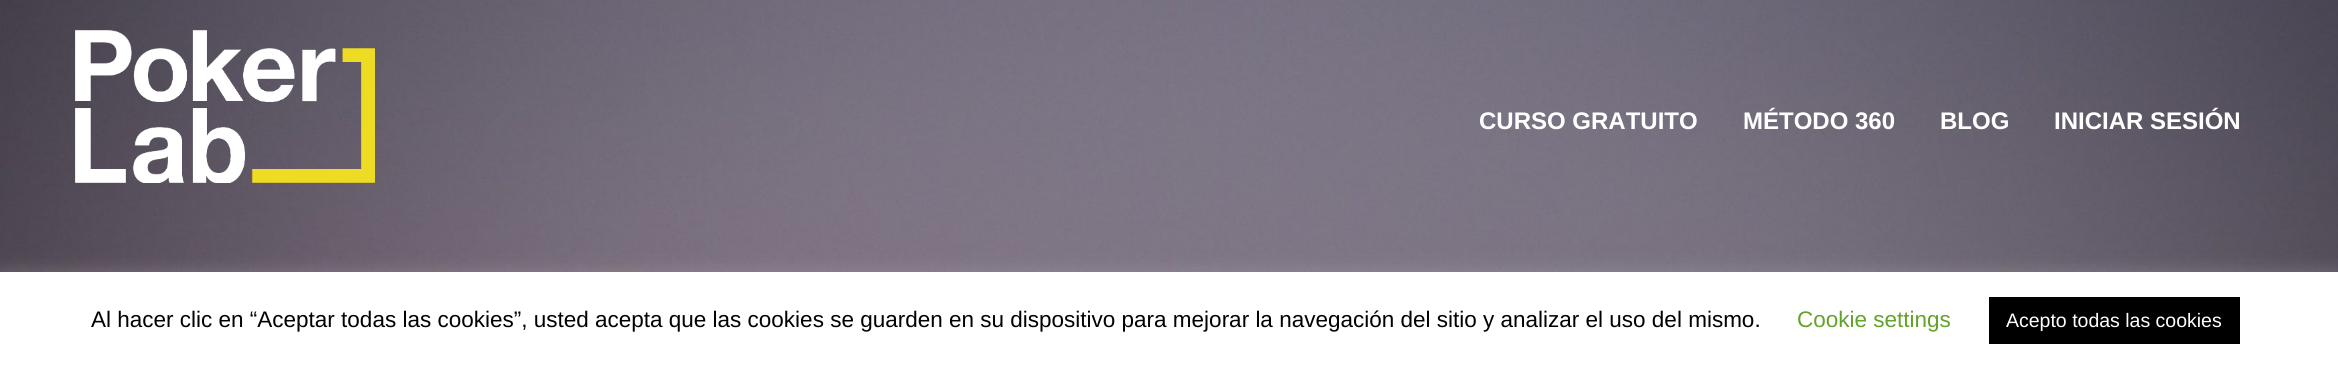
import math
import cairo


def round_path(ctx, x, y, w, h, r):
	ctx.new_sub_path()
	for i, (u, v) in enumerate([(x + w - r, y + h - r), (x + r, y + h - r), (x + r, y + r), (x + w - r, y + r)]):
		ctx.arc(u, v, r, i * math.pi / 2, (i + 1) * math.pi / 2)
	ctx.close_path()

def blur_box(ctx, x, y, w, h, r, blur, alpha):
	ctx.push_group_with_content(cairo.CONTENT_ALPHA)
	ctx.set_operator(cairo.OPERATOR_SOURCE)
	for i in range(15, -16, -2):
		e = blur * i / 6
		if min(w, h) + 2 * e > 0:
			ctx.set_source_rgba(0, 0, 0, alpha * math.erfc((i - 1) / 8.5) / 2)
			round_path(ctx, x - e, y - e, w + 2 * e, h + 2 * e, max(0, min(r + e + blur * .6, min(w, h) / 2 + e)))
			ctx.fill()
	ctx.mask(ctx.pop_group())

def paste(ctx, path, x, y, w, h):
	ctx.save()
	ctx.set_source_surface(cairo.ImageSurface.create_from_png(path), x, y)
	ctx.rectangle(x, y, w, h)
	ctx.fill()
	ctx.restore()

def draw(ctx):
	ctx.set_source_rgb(1, 1, 1)
	ctx.paint()
	paste(ctx, 'media/1.png', 0, 0, 2338, 272)
	paste(ctx, 'media/2.png', 75, 30, 300, 153)
	ctx.select_font_face('Liberation Sans', cairo.FONT_SLANT_NORMAL, cairo.FONT_WEIGHT_BOLD)
	ctx.set_font_size(24)
	ctx.set_source_rgb(1, 1, 1)
	for x, y, s in [
		(1479, 129, 'CURSO GRATUITO'),
		(1743, 129, 'MÉTODO 360'),
		(1940, 129, 'BLOG'),
		(2054, 129, 'INICIAR SESIÓN'),
	]:
		ctx.move_to(x, y)
		ctx.show_text(s)
	ctx.set_source_rgb(0.675, 0.671, 0.671)
	blur_box(ctx, 0, 270, 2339, 98, 0, 7.5, 0.3)
	ctx.set_source_rgb(1, 1, 1)
	ctx.rectangle(0, 272, 2338, 97)
	ctx.fill()
	ctx.select_font_face('Liberation Sans')
	ctx.set_font_size(22.5)
	ctx.set_source_rgb(0, 0, 0)
	ctx.move_to(91, 327)
	ctx.show_text('Al hacer clic en “Aceptar todas las cookies”, usted acepta que las cookies se guarden en su dispositivo para mejorar la navegación del sitio y analizar el uso del mismo.')
	ctx.set_source_rgb(0.384, 0.639, 0.161)
	ctx.move_to(1797, 327)
	ctx.show_text('Cookie settings')
	ctx.set_source_rgb(0, 0, 0)
	ctx.rectangle(1989, 297, 251, 47)
	ctx.fill()
	ctx.set_font_size(19.5)
	ctx.set_source_rgb(1, 1, 1)
	ctx.move_to(2006, 327)
	ctx.show_text('Acepto todas las cookies')


surface = cairo.ImageSurface(cairo.FORMAT_RGB24, 2338, 369)
ctx = cairo.Context(surface)
options = cairo.FontOptions()
options.set_hint_metrics(cairo.HINT_METRICS_OFF)
options.set_hint_style(cairo.HINT_STYLE_NONE)
ctx.set_font_options(options)
ctx.set_miter_limit(4)
draw(ctx)
surface.write_to_png('image.png')
